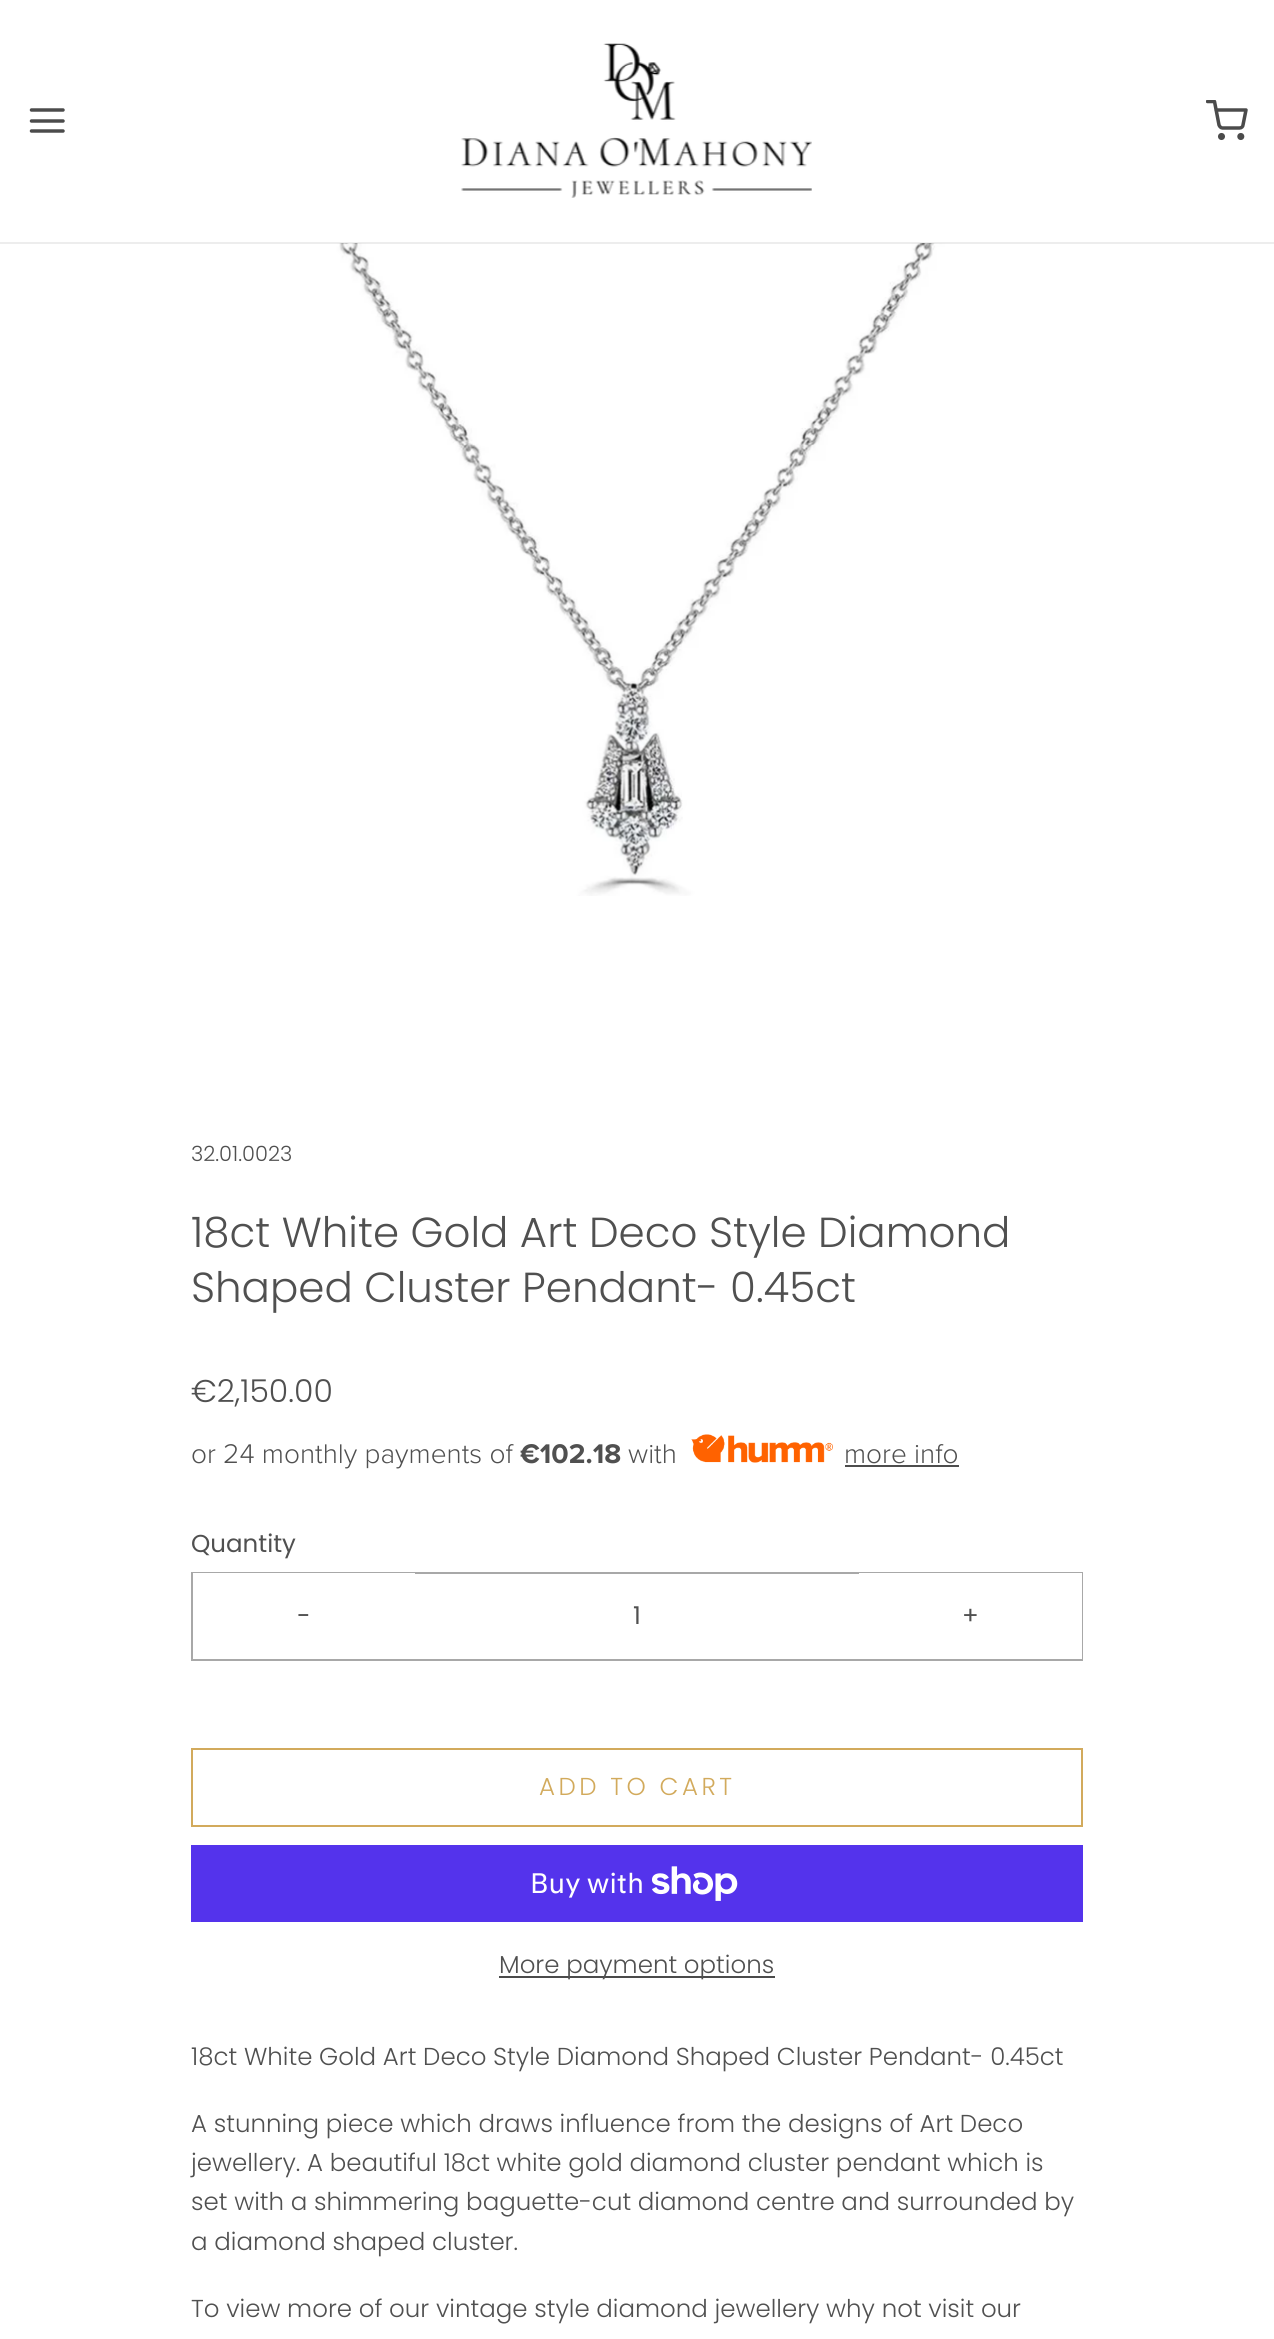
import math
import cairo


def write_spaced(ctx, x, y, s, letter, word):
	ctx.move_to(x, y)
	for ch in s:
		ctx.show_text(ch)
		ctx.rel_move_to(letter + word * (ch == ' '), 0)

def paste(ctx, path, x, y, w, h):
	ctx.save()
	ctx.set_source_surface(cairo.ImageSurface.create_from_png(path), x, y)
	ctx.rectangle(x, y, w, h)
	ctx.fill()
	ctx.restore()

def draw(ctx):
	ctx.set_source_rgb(1, 1, 1)
	ctx.paint()
	paste(ctx, 'media/2.png', 310, 243, 657, 653)
	ctx.set_source_rgba(0.294, 0.294, 0.294, 0.1)
	ctx.rectangle(0, 242, 1274, 2)
	ctx.fill()
	ctx.new_path()
	ctx.move_to(31.5, 121)
	ctx.line_to(63, 121)
	ctx.move_to(31.5, 110)
	ctx.line_to(63, 110)
	ctx.move_to(31.5, 131)
	ctx.line_to(63, 131)
	ctx.set_source_rgb(0.294, 0.294, 0.294)
	ctx.set_line_width(3.5)
	ctx.set_line_cap(cairo.LINE_CAP_ROUND)
	ctx.set_line_join(cairo.LINE_JOIN_ROUND)
	ctx.stroke()
	paste(ctx, 'media/1.png', 461, 43, 351, 155)
	ctx.save()
	ctx.rectangle(1206, 100, 42, 42)
	ctx.clip()
	ctx.new_path()
	ctx.move_to(1207.5, 101.5)
	ctx.line_to(1214.5, 101.5)
	ctx.line_to(1219, 125)
	ctx.curve_to(1219.5, 126.5, 1221, 128, 1222.5, 128)
	ctx.line_to(1239.5, 128)
	ctx.curve_to(1241.5, 128, 1243, 126.5, 1243, 125)
	ctx.line_to(1246, 110)
	ctx.line_to(1216, 110)
	ctx.stroke()
	ctx.restore()
	ctx.arc(1221.5, 136.5, 1.8, 0, 2 * math.pi)
	ctx.set_line_cap(cairo.LINE_CAP_BUTT)
	ctx.set_line_join(cairo.LINE_JOIN_MITER)
	ctx.stroke()
	ctx.arc(1240.8, 136.5, 1.8, 0, 2 * math.pi)
	ctx.stroke()
	ctx.select_font_face('Poppins Light')
	ctx.set_font_size(21)
	ctx.set_source_rgb(0.314, 0.314, 0.314)
	ctx.move_to(191, 1161)
	ctx.show_text('32.01.0023')
	ctx.set_font_size(42)
	ctx.move_to(191, 1247)
	ctx.show_text('18ct White Gold Art Deco Style Diamond')
	ctx.move_to(191, 1302)
	ctx.show_text('Shaped Cluster Pendant- 0.45ct')
	ctx.set_font_size(31.5)
	ctx.move_to(191, 1402)
	ctx.show_text('€2,150.00')
	ctx.select_font_face('Proxima Nova Light')
	ctx.set_font_size(28)
	ctx.move_to(191, 1463)
	ctx.show_text('or 24 monthly payments of')
	ctx.select_font_face('Proxima Nova', cairo.FONT_SLANT_NORMAL, cairo.FONT_WEIGHT_BOLD)
	ctx.move_to(520, 1463)
	ctx.show_text('€102.18')
	ctx.select_font_face('Proxima Nova Light')
	ctx.move_to(628, 1463)
	ctx.show_text('with')
	paste(ctx, 'media/3.png', 691, 1434, 142, 29)
	ctx.move_to(844, 1463)
	ctx.show_text('more info')
	ctx.set_source_rgb(0.302, 0.302, 0.302)
	ctx.rectangle(845, 1465, 114, 2)
	ctx.fill()
	ctx.select_font_face('Poppins')
	ctx.set_font_size(24.5)
	ctx.set_source_rgb(0.314, 0.314, 0.314)
	ctx.move_to(191, 1552)
	ctx.show_text('Quantity')
	ctx.rectangle(192, 1573, 890, 87)
	ctx.set_source_rgb(0.659, 0.659, 0.659)
	ctx.set_line_width(2)
	ctx.stroke()
	ctx.set_source_rgb(1, 1, 1)
	ctx.rectangle(193, 1573, 222, 1)
	ctx.fill()
	ctx.set_source_rgb(0.314, 0.314, 0.314)
	ctx.move_to(297, 1624)
	ctx.show_text('-')
	ctx.move_to(633, 1624)
	ctx.show_text('1')
	ctx.set_source_rgb(1, 1, 1)
	ctx.rectangle(859, 1573, 223, 86)
	ctx.fill()
	ctx.set_source_rgb(0.314, 0.314, 0.314)
	ctx.move_to(962, 1624)
	ctx.show_text('+')
	ctx.rectangle(192, 1749, 890, 77)
	ctx.set_source_rgb(0.824, 0.667, 0.361)
	ctx.stroke()
	ctx.select_font_face('Poppins Light')
	write_spaced(ctx, 539, 1795, 'ADD TO CART', 3.5, 0)
	ctx.set_source_rgb(0.329, 0.2, 0.922)
	ctx.rectangle(191, 1845, 892, 77)
	ctx.fill()
	ctx.select_font_face('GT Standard')
	ctx.set_font_size(28)
	ctx.set_source_rgb(1, 1, 1)
	ctx.move_to(530, 1893)
	ctx.show_text('Buy with')
	paste(ctx, 'media/4.png', 652, 1866, 86, 35)
	ctx.set_source_rgb(0.294, 0.294, 0.294)
	ctx.rectangle(499, 1976, 276, 2)
	ctx.fill()
	ctx.select_font_face('Poppins Light')
	ctx.set_font_size(24.5)
	ctx.set_source_rgb(0.314, 0.314, 0.314)
	for x, y, s in [
		(499, 1973, 'More payment options'),
		(191, 2065, '18ct White Gold Art Deco Style Diamond Shaped Cluster Pendant- 0.45ct'),
		(191, 2132, 'A stunning piece which draws influence from the designs of Art Deco'),
		(191, 2171, 'jewellery. A beautiful 18ct white gold diamond cluster pendant which is'),
		(191, 2210, 'set with a shimmering baguette-cut diamond centre and surrounded by'),
		(191, 2250, 'a diamond shaped cluster.'),
		(191, 2317, 'To view more of our vintage style diamond jewellery why not visit our'),
	]:
		ctx.move_to(x, y)
		ctx.show_text(s)


surface = cairo.ImageSurface(cairo.FORMAT_RGB24, 1274, 2339)
ctx = cairo.Context(surface)
options = cairo.FontOptions()
options.set_hint_metrics(cairo.HINT_METRICS_OFF)
options.set_hint_style(cairo.HINT_STYLE_NONE)
ctx.set_font_options(options)
ctx.set_miter_limit(4)
draw(ctx)
surface.write_to_png('image.png')
